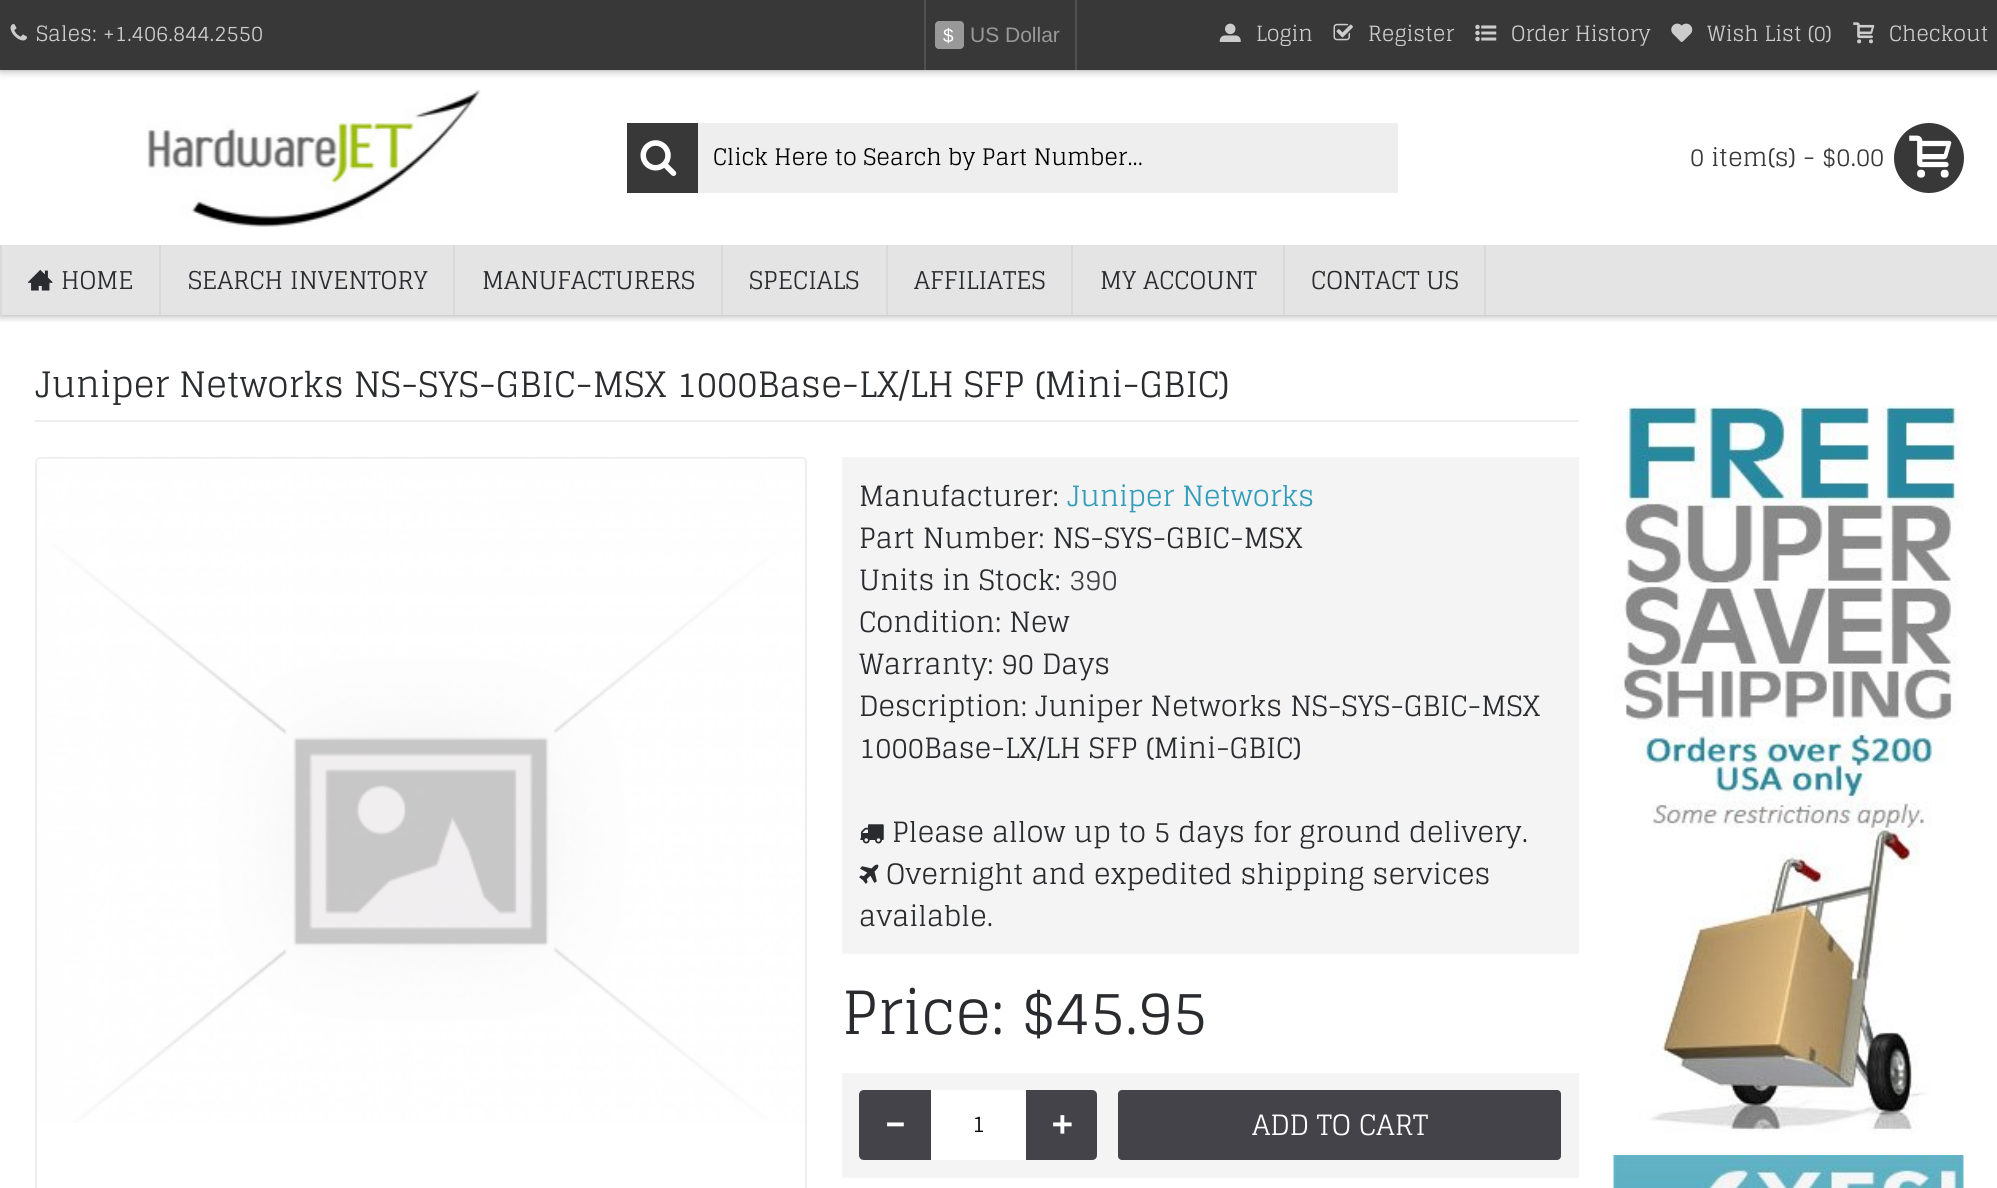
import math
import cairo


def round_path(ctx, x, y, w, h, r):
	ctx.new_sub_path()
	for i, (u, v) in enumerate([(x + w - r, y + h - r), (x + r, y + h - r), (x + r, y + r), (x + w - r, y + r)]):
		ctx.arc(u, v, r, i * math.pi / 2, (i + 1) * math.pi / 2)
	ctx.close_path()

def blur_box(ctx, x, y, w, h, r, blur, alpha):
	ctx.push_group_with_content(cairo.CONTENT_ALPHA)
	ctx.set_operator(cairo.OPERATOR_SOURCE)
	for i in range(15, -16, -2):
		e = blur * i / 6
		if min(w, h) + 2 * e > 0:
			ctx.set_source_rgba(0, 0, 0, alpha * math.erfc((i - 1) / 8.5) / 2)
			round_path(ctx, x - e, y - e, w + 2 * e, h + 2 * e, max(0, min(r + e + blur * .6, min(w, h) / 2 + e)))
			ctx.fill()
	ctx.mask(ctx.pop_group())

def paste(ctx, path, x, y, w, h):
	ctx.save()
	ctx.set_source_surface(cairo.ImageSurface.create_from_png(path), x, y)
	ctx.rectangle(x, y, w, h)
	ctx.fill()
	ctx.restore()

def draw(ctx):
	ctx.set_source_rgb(1, 1, 1)
	ctx.paint()
	ctx.save()
	ctx.rectangle(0, 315, 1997, 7)
	ctx.clip()
	ctx.set_source_rgb(0, 0, 0)
	blur_box(ctx, 0, 0, 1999, 315, 0, 4.5, 0.4)
	ctx.restore()
	ctx.set_source_rgb(0, 0, 0)
	blur_box(ctx, 0, 0, 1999, 70, 0, 4.5, 0.4)
	ctx.set_source_rgb(0.22, 0.22, 0.22)
	ctx.rectangle(0, 0, 1997, 70)
	ctx.fill()
	paste(ctx, 'media/1.png', 10, 24, 17, 17)
	ctx.select_font_face('Glegoo')
	ctx.set_font_size(21)
	ctx.set_source_rgb(0.8, 0.8, 0.8)
	ctx.move_to(36, 41)
	ctx.show_text('Sales: +1.406.844.2550')
	ctx.set_source_rgb(0.314, 0.314, 0.314)
	ctx.rectangle(1075, 0, 2, 70)
	ctx.fill()
	ctx.rectangle(924, 0, 2, 70)
	ctx.fill()
	ctx.set_source_rgb(0.6, 0.6, 0.6)
	round_path(ctx, 935, 21, 29, 28, 4)
	ctx.fill()
	ctx.select_font_face('Liberation Sans')
	ctx.set_font_size(19)
	ctx.set_source_rgb(1, 1, 1)
	ctx.move_to(943, 42)
	ctx.show_text('$')
	ctx.set_font_size(21)
	ctx.set_source_rgb(0.6, 0.6, 0.6)
	ctx.move_to(970, 42)
	ctx.show_text('US Dollar')
	paste(ctx, 'media/2.png', 1219, 23, 22, 19)
	ctx.select_font_face('Glegoo')
	ctx.set_source_rgb(0.8, 0.8, 0.8)
	ctx.move_to(1256, 41)
	ctx.show_text('Login')
	paste(ctx, 'media/3.png', 1333, 23, 20, 18)
	ctx.move_to(1368, 41)
	ctx.show_text('Register')
	paste(ctx, 'media/4.png', 1475, 24, 22, 18)
	ctx.move_to(1511, 41)
	ctx.show_text('Order History')
	paste(ctx, 'media/5.png', 1671, 23, 22, 19)
	ctx.move_to(1707, 41)
	ctx.show_text('Wish List (0)')
	paste(ctx, 'media/6.png', 1853, 22, 22, 22)
	ctx.move_to(1889, 41)
	ctx.show_text('Checkout')
	paste(ctx, 'media/7.png', 147, 89, 334, 139)
	ctx.set_source_rgb(0.22, 0.22, 0.22)
	ctx.rectangle(627, 123, 71, 70)
	ctx.fill()
	paste(ctx, 'media/8.png', 640, 140, 37, 36)
	ctx.set_source_rgb(0.933, 0.933, 0.933)
	ctx.rectangle(698, 123, 700, 70)
	ctx.fill()
	ctx.set_font_size(22.75)
	ctx.set_source_rgb(0, 0, 0)
	ctx.move_to(713, 165)
	ctx.show_text('Click Here to Search by Part Number...')
	ctx.set_font_size(24.5)
	ctx.set_source_rgb(0.22, 0.22, 0.22)
	ctx.move_to(1690, 166)
	ctx.show_text('0 item(s) - $0.00')
	ctx.new_path()
	ctx.arc(1929, 158, 35, 0, 2 * math.pi)
	ctx.fill()
	paste(ctx, 'media/9.png', 1909, 135, 43, 43)
	ctx.set_source_rgb(0.851, 0.851, 0.851)
	ctx.rectangle(0, 245, 2, 70)
	ctx.fill()
	ctx.set_source_rgb(0.894, 0.894, 0.894)
	ctx.rectangle(2, 245, 1995, 70)
	ctx.fill()
	ctx.set_source_rgb(0.851, 0.851, 0.851)
	ctx.rectangle(159, 245, 2, 70)
	ctx.fill()
	paste(ctx, 'media/10.png', 28, 269, 25, 22)
	ctx.set_source_rgb(0.165, 0.169, 0.18)
	ctx.move_to(61, 289)
	ctx.show_text('HOME')
	ctx.set_source_rgb(0.851, 0.851, 0.851)
	ctx.rectangle(453, 245, 2, 70)
	ctx.fill()
	ctx.set_source_rgb(0.165, 0.169, 0.18)
	ctx.move_to(188, 289)
	ctx.show_text('SEARCH INVENTORY')
	ctx.set_source_rgb(0.851, 0.851, 0.851)
	ctx.rectangle(721, 245, 2, 70)
	ctx.fill()
	ctx.set_source_rgb(0.165, 0.169, 0.18)
	ctx.move_to(482, 289)
	ctx.show_text('MANUFACTURERS')
	ctx.set_source_rgb(0.851, 0.851, 0.851)
	ctx.rectangle(886, 245, 2, 70)
	ctx.fill()
	ctx.set_source_rgb(0.165, 0.169, 0.18)
	ctx.move_to(749, 289)
	ctx.show_text('SPECIALS')
	ctx.set_source_rgb(0.851, 0.851, 0.851)
	ctx.rectangle(1071, 245, 2, 70)
	ctx.fill()
	ctx.set_source_rgb(0.165, 0.169, 0.18)
	ctx.move_to(914, 289)
	ctx.show_text('AFFILIATES')
	ctx.set_source_rgb(0.851, 0.851, 0.851)
	ctx.rectangle(1283, 245, 2, 70)
	ctx.fill()
	ctx.set_source_rgb(0.165, 0.169, 0.18)
	ctx.move_to(1100, 289)
	ctx.show_text('MY ACCOUNT')
	ctx.set_source_rgb(0.851, 0.851, 0.851)
	ctx.rectangle(1484, 245, 2, 70)
	ctx.fill()
	ctx.set_source_rgb(0.165, 0.169, 0.18)
	ctx.move_to(1311, 289)
	ctx.show_text('CONTACT US')
	ctx.set_source_rgb(0.933, 0.933, 0.933)
	ctx.rectangle(35, 420, 1544, 2)
	ctx.fill()
	ctx.set_font_size(35)
	ctx.set_source_rgb(0.165, 0.169, 0.18)
	ctx.move_to(35, 397)
	ctx.show_text('Juniper Networks NS-SYS-GBIC-MSX 1000Base-LX/LH SFP (Mini-GBIC)')
	round_path(ctx, 36, 458, 770, 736, 4)
	ctx.set_source_rgb(0.933, 0.933, 0.933)
	ctx.stroke()
	paste(ctx, 'media/11.png', 37, 458, 768, 665)
	ctx.set_source_rgb(0.957, 0.957, 0.957)
	ctx.rectangle(842, 457, 737, 497)
	ctx.fill()
	ctx.set_font_size(28)
	ctx.set_source_rgb(0.165, 0.169, 0.18)
	ctx.move_to(859, 506)
	ctx.show_text('Manufacturer:')
	ctx.set_source_rgb(0.2, 0.616, 0.725)
	ctx.move_to(1067, 506)
	ctx.show_text('Juniper Networks')
	ctx.set_source_rgb(0.165, 0.169, 0.18)
	ctx.move_to(859, 548)
	ctx.show_text('Part Number: NS-SYS-GBIC-MSX')
	ctx.move_to(859, 590)
	ctx.show_text('Units in Stock:')
	ctx.set_source_rgb(0.267, 0.263, 0.286)
	ctx.move_to(1069, 590)
	ctx.show_text('390')
	ctx.set_source_rgb(0.165, 0.169, 0.18)
	for x, y, s in [
		(859, 632, 'Condition: New'),
		(859, 674, 'Warranty: 90 Days'),
		(859, 716, 'Description: Juniper Networks NS-SYS-GBIC-MSX'),
		(859, 758, '1000Base-LX/LH SFP (Mini-GBIC)'),
	]:
		ctx.move_to(x, y)
		ctx.show_text(s)
	paste(ctx, 'media/12.png', 860, 824, 24, 20)
	ctx.move_to(892, 842)
	ctx.show_text('Please allow up to 5 days for ground delivery.')
	paste(ctx, 'media/13.png', 859, 864, 20, 20)
	ctx.move_to(886, 884)
	ctx.show_text('Overnight and expedited shipping services')
	ctx.move_to(859, 926)
	ctx.show_text('available.')
	ctx.set_font_size(59.5)
	ctx.move_to(842, 1034)
	ctx.show_text('Price: $45.95')
	ctx.set_source_rgb(0.957, 0.957, 0.957)
	ctx.rectangle(842, 1073, 737, 105)
	ctx.fill()
	ctx.set_source_rgb(0.267, 0.263, 0.286)
	ctx.new_path()
	ctx.move_to(864, 1090)
	ctx.line_to(931, 1090)
	ctx.line_to(931, 1160)
	ctx.line_to(864, 1160)
	ctx.curve_to(861, 1160, 859, 1158, 859, 1155)
	ctx.line_to(859, 1095)
	ctx.curve_to(859, 1092, 861, 1090, 864, 1090)
	ctx.close_path()
	ctx.fill()
	ctx.select_font_face('Glegoo', cairo.FONT_SLANT_NORMAL, cairo.FONT_WEIGHT_BOLD)
	ctx.set_font_size(44)
	ctx.set_source_rgb(1, 1, 1)
	ctx.move_to(884, 1139)
	ctx.show_text('-')
	ctx.rectangle(931, 1090, 95, 70)
	ctx.fill()
	ctx.select_font_face('Glegoo')
	ctx.set_font_size(22.75)
	ctx.set_source_rgb(0, 0, 0)
	ctx.move_to(972, 1132)
	ctx.show_text('1')
	ctx.set_source_rgb(0.267, 0.263, 0.286)
	ctx.new_path()
	ctx.move_to(1026, 1090)
	ctx.line_to(1092, 1090)
	ctx.curve_to(1095, 1090, 1097, 1092, 1097, 1095)
	ctx.line_to(1097, 1155)
	ctx.curve_to(1097, 1158, 1095, 1160, 1092, 1160)
	ctx.line_to(1026, 1160)
	ctx.close_path()
	ctx.fill()
	ctx.select_font_face('Glegoo', cairo.FONT_SLANT_NORMAL, cairo.FONT_WEIGHT_BOLD)
	ctx.set_font_size(44)
	ctx.set_source_rgb(1, 1, 1)
	ctx.move_to(1049, 1139)
	ctx.show_text('+')
	ctx.set_source_rgb(0.267, 0.263, 0.286)
	round_path(ctx, 1118, 1090, 443, 70, 4)
	ctx.fill()
	ctx.select_font_face('Glegoo')
	ctx.set_font_size(28)
	ctx.set_source_rgb(1, 1, 1)
	ctx.move_to(1252, 1135)
	ctx.show_text('ADD TO CART')
	paste(ctx, 'media/14.png', 1613, 405, 351, 729)
	paste(ctx, 'media/15.png', 1613, 1155, 351, 33)


surface = cairo.ImageSurface(cairo.FORMAT_RGB24, 1997, 1188)
ctx = cairo.Context(surface)
options = cairo.FontOptions()
options.set_hint_metrics(cairo.HINT_METRICS_OFF)
options.set_hint_style(cairo.HINT_STYLE_NONE)
ctx.set_font_options(options)
ctx.set_miter_limit(4)
draw(ctx)
surface.write_to_png('image.png')
